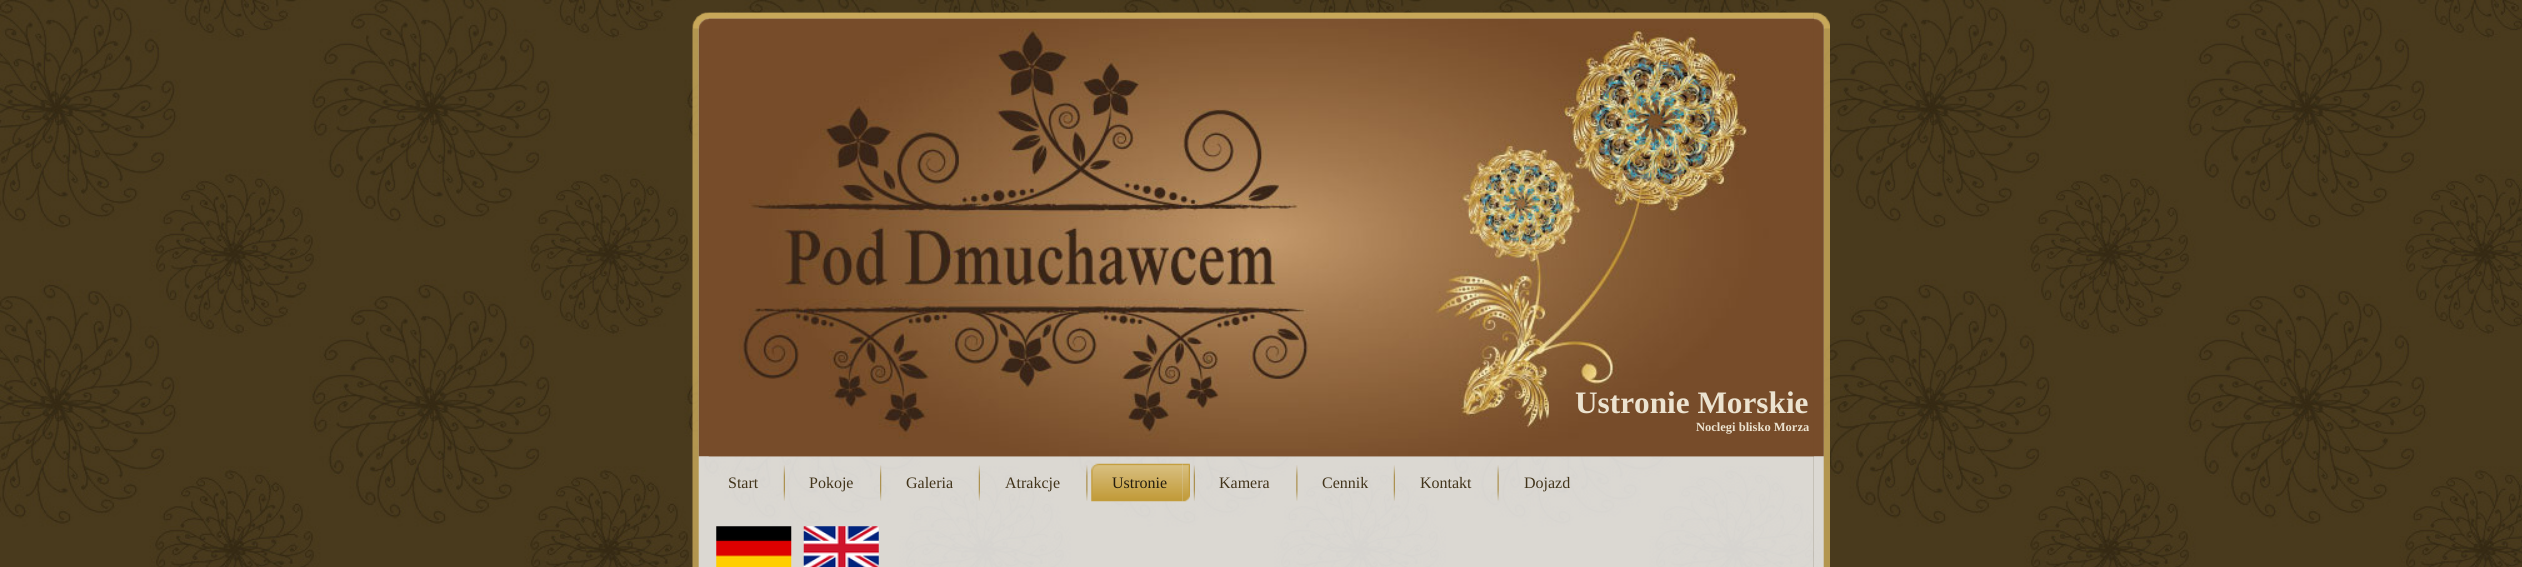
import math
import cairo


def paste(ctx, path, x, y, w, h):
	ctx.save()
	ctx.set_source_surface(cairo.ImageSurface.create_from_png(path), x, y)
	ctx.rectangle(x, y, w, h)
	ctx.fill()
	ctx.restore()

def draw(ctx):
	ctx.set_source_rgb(1, 1, 1)
	ctx.paint()
	paste(ctx, 'media/1.png', 0, 0, 2522, 567)
	paste(ctx, 'media/2.png', 692, 12, 1122, 17)
	paste(ctx, 'media/3.png', 692, 12, 1122, 17)
	paste(ctx, 'media/6.png', 692, 28, 1122, 539)
	paste(ctx, 'media/7.png', 1813, 28, 17, 539)
	paste(ctx, 'media/4.png', 1813, 12, 17, 17)
	paste(ctx, 'media/5.png', 1813, 12, 17, 17)
	paste(ctx, 'media/8.png', 698, 18, 1126, 439)
	paste(ctx, 'media/9.png', 708, 18, 1106, 439)
	ctx.select_font_face('Liberation Serif', cairo.FONT_SLANT_NORMAL, cairo.FONT_WEIGHT_BOLD)
	ctx.set_font_size(31.25)
	ctx.set_source_rgb(0.925, 0.89, 0.816)
	ctx.move_to(1575, 413)
	ctx.show_text('Ustronie Morskie')
	ctx.set_font_size(12.5)
	ctx.move_to(1696, 431)
	ctx.show_text('Noclegi blisko Morza')
	ctx.select_font_face('Liberation Serif')
	ctx.set_font_size(16)
	ctx.set_source_rgb(0.259, 0.204, 0.102)
	ctx.move_to(728, 488)
	ctx.show_text('Start')
	paste(ctx, 'media/10.png', 783, 465, 2, 36)
	ctx.move_to(809, 488)
	ctx.show_text('Pokoje')
	paste(ctx, 'media/11.png', 880, 465, 2, 36)
	ctx.move_to(906, 488)
	ctx.show_text('Galeria')
	paste(ctx, 'media/12.png', 978, 465, 2, 36)
	ctx.move_to(1005, 488)
	ctx.show_text('Atrakcje')
	paste(ctx, 'media/13.png', 1086, 465, 2, 36)
	paste(ctx, 'media/14.png', 1091, 463, 92, 39)
	paste(ctx, 'media/15.png', 1182, 463, 8, 39)
	ctx.set_source_rgb(0.141, 0.114, 0.059)
	ctx.move_to(1112, 488)
	ctx.show_text('Ustronie')
	paste(ctx, 'media/16.png', 1193, 465, 2, 36)
	ctx.set_source_rgb(0.259, 0.204, 0.102)
	ctx.move_to(1219, 488)
	ctx.show_text('Kamera')
	paste(ctx, 'media/17.png', 1296, 465, 2, 36)
	ctx.move_to(1322, 488)
	ctx.show_text('Cennik')
	paste(ctx, 'media/18.png', 1393, 465, 2, 36)
	ctx.move_to(1420, 488)
	ctx.show_text('Kontakt')
	paste(ctx, 'media/19.png', 1497, 465, 2, 36)
	ctx.move_to(1524, 488)
	ctx.show_text('Dojazd')
	paste(ctx, 'media/20.png', 716, 526, 76, 41)
	paste(ctx, 'media/21.png', 803, 526, 76, 41)


surface = cairo.ImageSurface(cairo.FORMAT_RGB24, 2522, 567)
ctx = cairo.Context(surface)
options = cairo.FontOptions()
options.set_hint_metrics(cairo.HINT_METRICS_OFF)
options.set_hint_style(cairo.HINT_STYLE_NONE)
ctx.set_font_options(options)
ctx.set_miter_limit(4)
draw(ctx)
surface.write_to_png('image.png')
